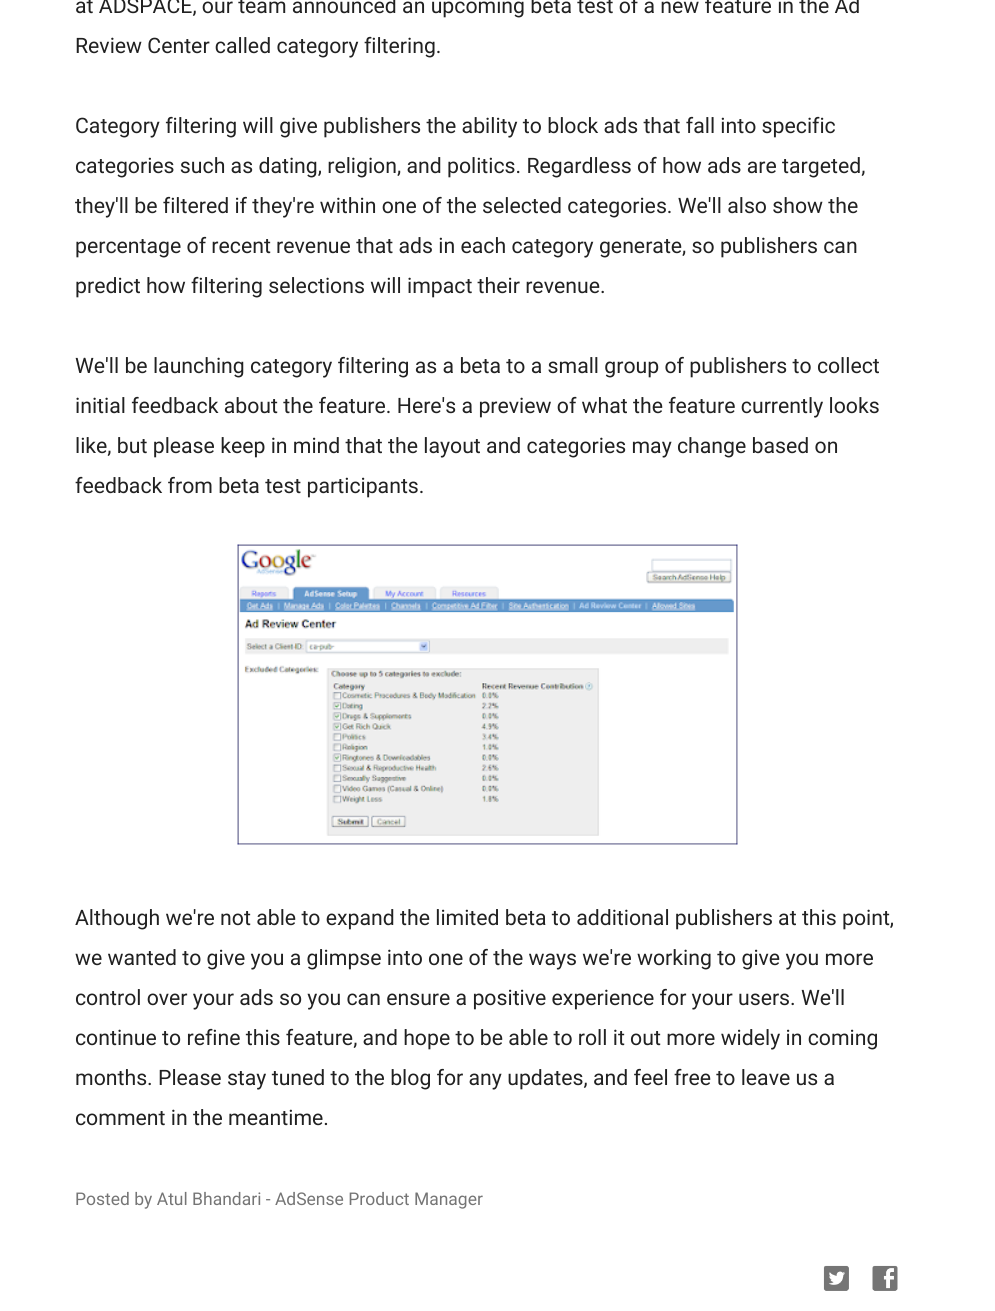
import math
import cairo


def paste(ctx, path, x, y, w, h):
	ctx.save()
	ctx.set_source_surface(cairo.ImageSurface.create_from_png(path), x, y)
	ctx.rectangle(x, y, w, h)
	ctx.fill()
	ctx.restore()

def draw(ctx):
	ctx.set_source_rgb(1, 1, 1)
	ctx.paint()
	ctx.select_font_face('Roboto')
	ctx.set_font_size(21.25)
	ctx.set_source_rgb(0.129, 0.129, 0.129)
	for x, y, s in [
		(75, 13, 'at ADSPACE, our team announced an upcoming beta test of a new feature in the Ad'),
		(75, 53, 'Review Center called category filtering.'),
		(75, 133, 'Category filtering will give publishers the ability to block ads that fall into specific'),
		(75, 173, 'categories such as dating, religion, and politics. Regardless of how ads are targeted,'),
		(75, 213, 'they\'ll be filtered if they\'re within one of the selected categories. We\'ll also show the'),
		(75, 253, 'percentage of recent revenue that ads in each category generate, so publishers can'),
		(75, 293, 'predict how filtering selections will impact their revenue.'),
		(75, 373, 'We\'ll be launching category filtering as a beta to a small group of publishers to collect'),
		(75, 413, 'initial feedback about the feature. Here\'s a preview of what the feature currently looks'),
		(75, 453, 'like, but please keep in mind that the layout and categories may change based on'),
		(75, 493, 'feedback from beta test participants.'),
	]:
		ctx.move_to(x, y)
		ctx.show_text(s)
	paste(ctx, 'media/1.png', 237, 544, 501, 301)
	for x, y, s in [
		(75, 925, 'Although we\'re not able to expand the limited beta to additional publishers at this point,'),
		(75, 965, 'we wanted to give you a glimpse into one of the ways we\'re working to give you more'),
		(75, 1005, 'control over your ads so you can ensure a positive experience for your users. We\'ll'),
		(75, 1045, 'continue to refine this feature, and hope to be able to roll it out more widely in coming'),
		(75, 1085, 'months. Please stay tuned to the blog for any updates, and feel free to leave us a'),
		(75, 1125, 'comment in the meantime.'),
	]:
		ctx.move_to(x, y)
		ctx.show_text(s)
	ctx.set_font_size(17.5)
	ctx.set_source_rgb(0.459, 0.459, 0.459)
	ctx.move_to(75, 1205)
	ctx.show_text('Posted by Atul Bhandari - AdSense Product Manager')
	paste(ctx, 'media/2.png', 823, 1265, 26, 26)
	paste(ctx, 'media/3.png', 872, 1265, 26, 26)


surface = cairo.ImageSurface(cairo.FORMAT_RGB24, 995, 1311)
ctx = cairo.Context(surface)
options = cairo.FontOptions()
options.set_hint_metrics(cairo.HINT_METRICS_OFF)
options.set_hint_style(cairo.HINT_STYLE_NONE)
ctx.set_font_options(options)
ctx.set_miter_limit(4)
draw(ctx)
surface.write_to_png('image.png')
